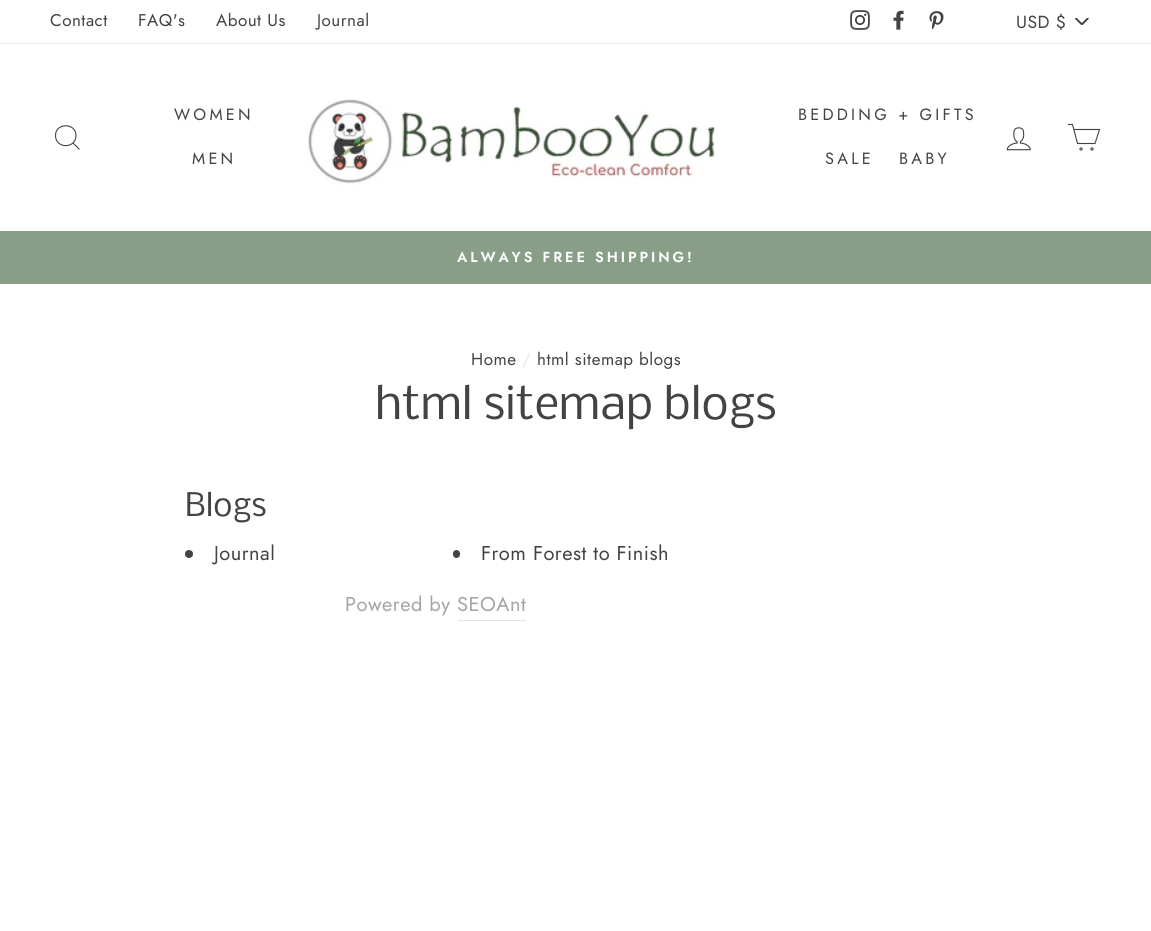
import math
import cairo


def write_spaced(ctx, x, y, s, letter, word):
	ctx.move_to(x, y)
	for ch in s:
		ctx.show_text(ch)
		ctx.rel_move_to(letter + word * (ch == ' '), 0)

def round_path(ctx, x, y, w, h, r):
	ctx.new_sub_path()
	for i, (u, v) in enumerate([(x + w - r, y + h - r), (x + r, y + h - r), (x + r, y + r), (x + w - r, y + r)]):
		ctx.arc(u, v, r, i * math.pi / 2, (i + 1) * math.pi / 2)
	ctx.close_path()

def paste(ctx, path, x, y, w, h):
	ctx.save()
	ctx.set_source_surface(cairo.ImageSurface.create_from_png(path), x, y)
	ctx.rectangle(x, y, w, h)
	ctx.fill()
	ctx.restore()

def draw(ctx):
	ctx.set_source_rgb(1, 1, 1)
	ctx.paint()
	ctx.select_font_face('Jost')
	ctx.set_font_size(17)
	ctx.set_source_rgb(0.267, 0.259, 0.259)
	for x, y, s in [
		(50, 26, 'Contact'),
		(138, 26, 'FAQ\'s'),
		(216, 26, 'About Us'),
		(317, 26, 'Journal'),
	]:
		write_spaced(ctx, x, y, s, 0.5, 0)
	paste(ctx, 'media/1.png', 850, 10, 20, 20)
	paste(ctx, 'media/2.png', 893, 10, 11, 20)
	paste(ctx, 'media/3.png', 929, 11, 15, 19)
	paste(ctx, 'media/4.png', 1075, 18, 14, 7)
	ctx.set_font_size(17.5)
	write_spaced(ctx, 1016, 28, 'USD $', 0.5, 0)
	ctx.set_source_rgb(0.925, 0.925, 0.925)
	ctx.rectangle(0, 43, 1151, 1)
	ctx.fill()
	ctx.new_path()
	ctx.move_to(76, 135.5)
	ctx.curve_to(76, 149, 55.5, 149, 55.5, 135.5)
	ctx.curve_to(55.5, 122.5, 76, 122.5, 76, 135.5)
	ctx.close_path()
	ctx.move_to(79.5, 149.5)
	ctx.line_to(73, 143)
	ctx.set_source_rgb(0.267, 0.259, 0.259)
	ctx.set_line_width(1.1)
	ctx.stroke()
	ctx.set_font_size(16.25)
	write_spaced(ctx, 174, 120, 'WOMEN', 3.25, 0)
	write_spaced(ctx, 192, 164, 'MEN', 3.25, 0)
	paste(ctx, 'media/5.png', 307, 99, 409, 87)
	for x, y, s in [
		(798, 120, 'BEDDING + GIFTS'),
		(825, 164, 'SALE'),
		(899, 164, 'BABY'),
	]:
		write_spaced(ctx, x, y, s, 3.25, 0)
	paste(ctx, 'media/6.png', 1006, 127, 25, 24)
	ctx.new_path()
	ctx.move_to(1074, 129.5)
	ctx.line_to(1099.5, 129.5)
	ctx.line_to(1095, 143.5)
	ctx.line_to(1077.5, 143.5)
	ctx.line_to(1072.5, 124.5)
	ctx.line_to(1068, 124.5)
	ctx.stroke()
	ctx.arc(1081, 149, 1.1, 0, 2 * math.pi)
	ctx.stroke()
	ctx.arc(1092, 149, 1.1, 0, 2 * math.pi)
	ctx.stroke()
	ctx.set_source_rgb(0.533, 0.62, 0.529)
	ctx.rectangle(0, 231, 1151, 53)
	ctx.fill()
	ctx.select_font_face('Jost SemiBold')
	ctx.set_font_size(14.5)
	ctx.set_source_rgb(1, 1, 1)
	write_spaced(ctx, 457, 262, 'ALWAYS FREE SHIPPING!', 2.9, 0)
	ctx.select_font_face('Jost')
	ctx.set_font_size(17)
	ctx.set_source_rgb(0.267, 0.259, 0.259)
	write_spaced(ctx, 471, 365, 'Home', 0.5, 0)
	ctx.set_source_rgb(0.91, 0.91, 0.882)
	write_spaced(ctx, 522, 365, '/', 0.5, 0)
	ctx.set_source_rgb(0.267, 0.259, 0.259)
	write_spaced(ctx, 537, 365, 'html sitemap blogs', 0.5, 0)
	ctx.select_font_face('Nobile')
	ctx.set_font_size(43.75)
	ctx.move_to(375, 419)
	ctx.show_text('html sitemap blogs')
	ctx.set_font_size(31)
	ctx.move_to(185, 516)
	ctx.show_text('Blogs')
	ctx.new_path()
	ctx.arc(189, 554, 4, 0, 2 * math.pi)
	ctx.fill()
	ctx.select_font_face('Jost')
	ctx.set_font_size(20)
	write_spaced(ctx, 214, 560, 'Journal', 0.5, 0)
	round_path(ctx, 453, 550, 7, 8, 3.5)
	ctx.fill()
	write_spaced(ctx, 481, 560, 'From Forest to Finish', 0.5, 0)
	ctx.set_source_rgb(0.643, 0.643, 0.643)
	write_spaced(ctx, 345, 611, 'Powered by SEOAnt', 0.5, 0)
	ctx.set_source_rgb(0.89, 0.89, 0.89)
	ctx.rectangle(458, 620, 68, 1)
	ctx.fill()


surface = cairo.ImageSurface(cairo.FORMAT_RGB24, 1151, 931)
ctx = cairo.Context(surface)
options = cairo.FontOptions()
options.set_hint_metrics(cairo.HINT_METRICS_OFF)
options.set_hint_style(cairo.HINT_STYLE_NONE)
ctx.set_font_options(options)
ctx.set_miter_limit(4)
draw(ctx)
surface.write_to_png('image.png')
